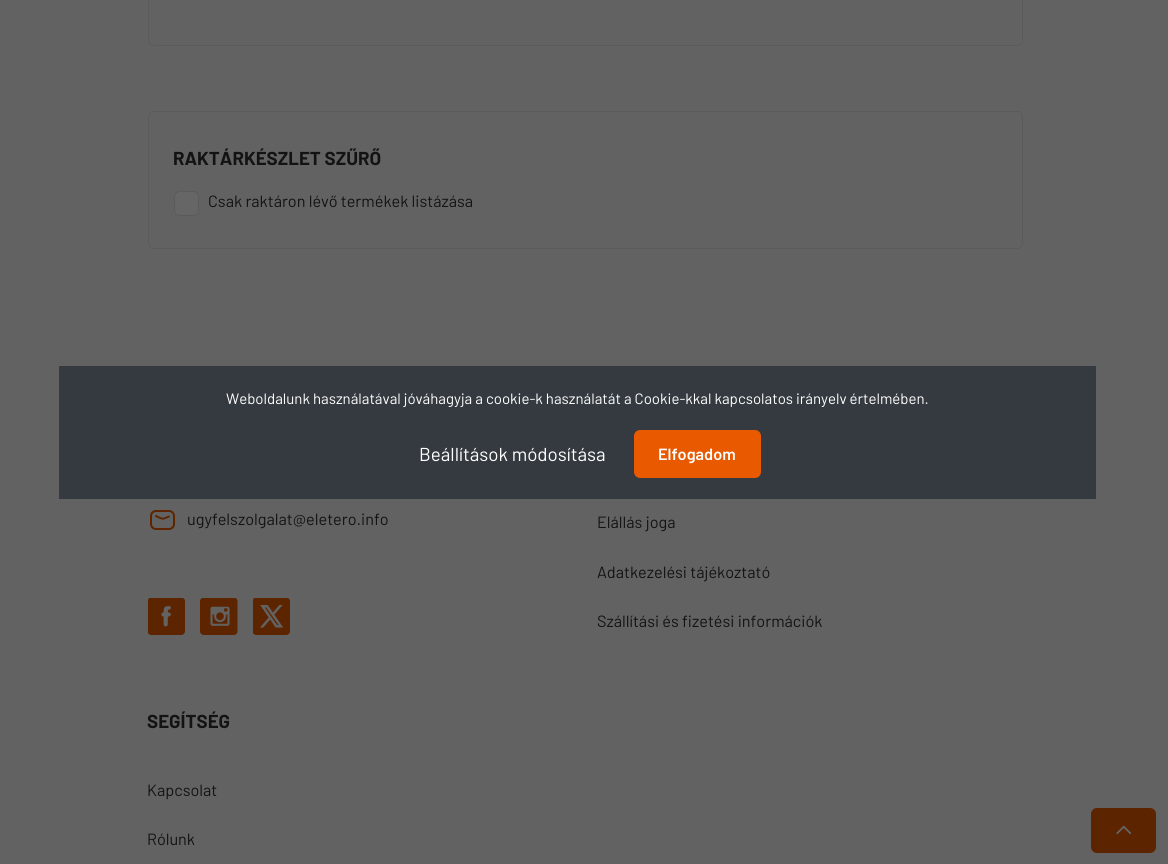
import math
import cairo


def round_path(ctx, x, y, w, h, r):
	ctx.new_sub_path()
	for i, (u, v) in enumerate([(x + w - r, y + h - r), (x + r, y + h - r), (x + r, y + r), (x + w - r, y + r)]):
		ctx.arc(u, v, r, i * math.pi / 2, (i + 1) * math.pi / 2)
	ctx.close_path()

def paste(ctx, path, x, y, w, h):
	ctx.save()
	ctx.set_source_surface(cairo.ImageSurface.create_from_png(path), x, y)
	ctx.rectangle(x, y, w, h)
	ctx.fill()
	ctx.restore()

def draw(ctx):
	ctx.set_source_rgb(0.384, 0.384, 0.384)
	ctx.paint()
	round_path(ctx, 148.5, -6.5, 874, 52, 5.5)
	ctx.set_source_rgb(0.357, 0.357, 0.369)
	ctx.set_line_width(1)
	ctx.stroke()
	round_path(ctx, 148.5, 111.5, 874, 137, 5.5)
	ctx.stroke()
	ctx.select_font_face('Barlow', cairo.FONT_SLANT_NORMAL, cairo.FONT_WEIGHT_BOLD)
	ctx.set_font_size(18.75)
	ctx.set_source_rgb(0.075, 0.078, 0.078)
	ctx.move_to(173, 165)
	ctx.show_text('RAKTÁRKÉSZLET SZŰRŐ')
	ctx.set_source_rgb(0.4, 0.4, 0.4)
	round_path(ctx, 174.5, 191.5, 24, 24, 5.5)
	ctx.fill_preserve()
	ctx.set_source_rgb(0.357, 0.357, 0.369)
	ctx.stroke()
	ctx.select_font_face('Barlow')
	ctx.set_font_size(16.25)
	ctx.set_source_rgb(0.075, 0.078, 0.078)
	ctx.move_to(208, 207)
	ctx.show_text('Csak raktáron lévő termékek listázása')
	round_path(ctx, 151, 511, 23, 18, 5)
	ctx.set_source_rgb(0.365, 0.141, 0)
	ctx.set_line_width(2)
	ctx.stroke()
	ctx.new_path()
	ctx.move_to(156, 516)
	ctx.curve_to(163.5, 519.5, 161.5, 519.5, 169, 516.5)
	ctx.set_line_width(1.9)
	ctx.set_line_cap(cairo.LINE_CAP_ROUND)
	ctx.set_line_join(cairo.LINE_JOIN_ROUND)
	ctx.stroke()
	ctx.set_source_rgb(0.075, 0.078, 0.078)
	ctx.move_to(187, 525)
	ctx.show_text('ugyfelszolgalat@eletero.info')
	paste(ctx, 'media/1.png', 148, 598, 37, 37)
	paste(ctx, 'media/2.png', 200, 598, 38, 37)
	paste(ctx, 'media/3.png', 253, 598, 37, 37)
	for x, y, s in [
		(597, 528, 'Elállás joga'),
		(597, 578, 'Adatkezelési tájékoztató'),
		(597, 627, 'Szállítási és fizetési információk'),
	]:
		ctx.move_to(x, y)
		ctx.show_text(s)
	ctx.select_font_face('Barlow', cairo.FONT_SLANT_NORMAL, cairo.FONT_WEIGHT_BOLD)
	ctx.set_font_size(18.75)
	ctx.move_to(147, 728)
	ctx.show_text('SEGÍTSÉG')
	ctx.select_font_face('Barlow')
	ctx.set_font_size(16.25)
	ctx.move_to(147, 796)
	ctx.show_text('Kapcsolat')
	ctx.move_to(147, 845)
	ctx.show_text('Rólunk')
	ctx.set_source_rgb(0.365, 0.141, 0)
	round_path(ctx, 1091, 808, 65, 45, 6)
	ctx.fill()
	paste(ctx, 'media/4.png', 1116, 825, 16, 10)
	ctx.set_source_rgb(0.204, 0.227, 0.251)
	ctx.rectangle(59, 366, 1037, 133)
	ctx.fill()
	ctx.set_font_size(15)
	ctx.set_source_rgb(1, 1, 1)
	ctx.move_to(226, 404)
	ctx.show_text('Weboldalunk használatával jóváhagyja a cookie-k használatát a Cookie-kkal kapcsolatos irányelv értelmében.')
	ctx.set_font_size(18.75)
	ctx.move_to(419, 461)
	ctx.show_text('Beállítások módosítása')
	ctx.set_source_rgb(0.91, 0.349, 0)
	round_path(ctx, 634, 430, 127, 48, 6)
	ctx.fill()
	ctx.select_font_face('Barlow SemiBold')
	ctx.set_font_size(16.25)
	ctx.set_source_rgb(1, 1, 1)
	ctx.move_to(658, 460)
	ctx.show_text('Elfogadom')


surface = cairo.ImageSurface(cairo.FORMAT_RGB24, 1168, 864)
ctx = cairo.Context(surface)
options = cairo.FontOptions()
options.set_hint_metrics(cairo.HINT_METRICS_OFF)
options.set_hint_style(cairo.HINT_STYLE_NONE)
ctx.set_font_options(options)
ctx.set_miter_limit(4)
draw(ctx)
surface.write_to_png('image.png')
